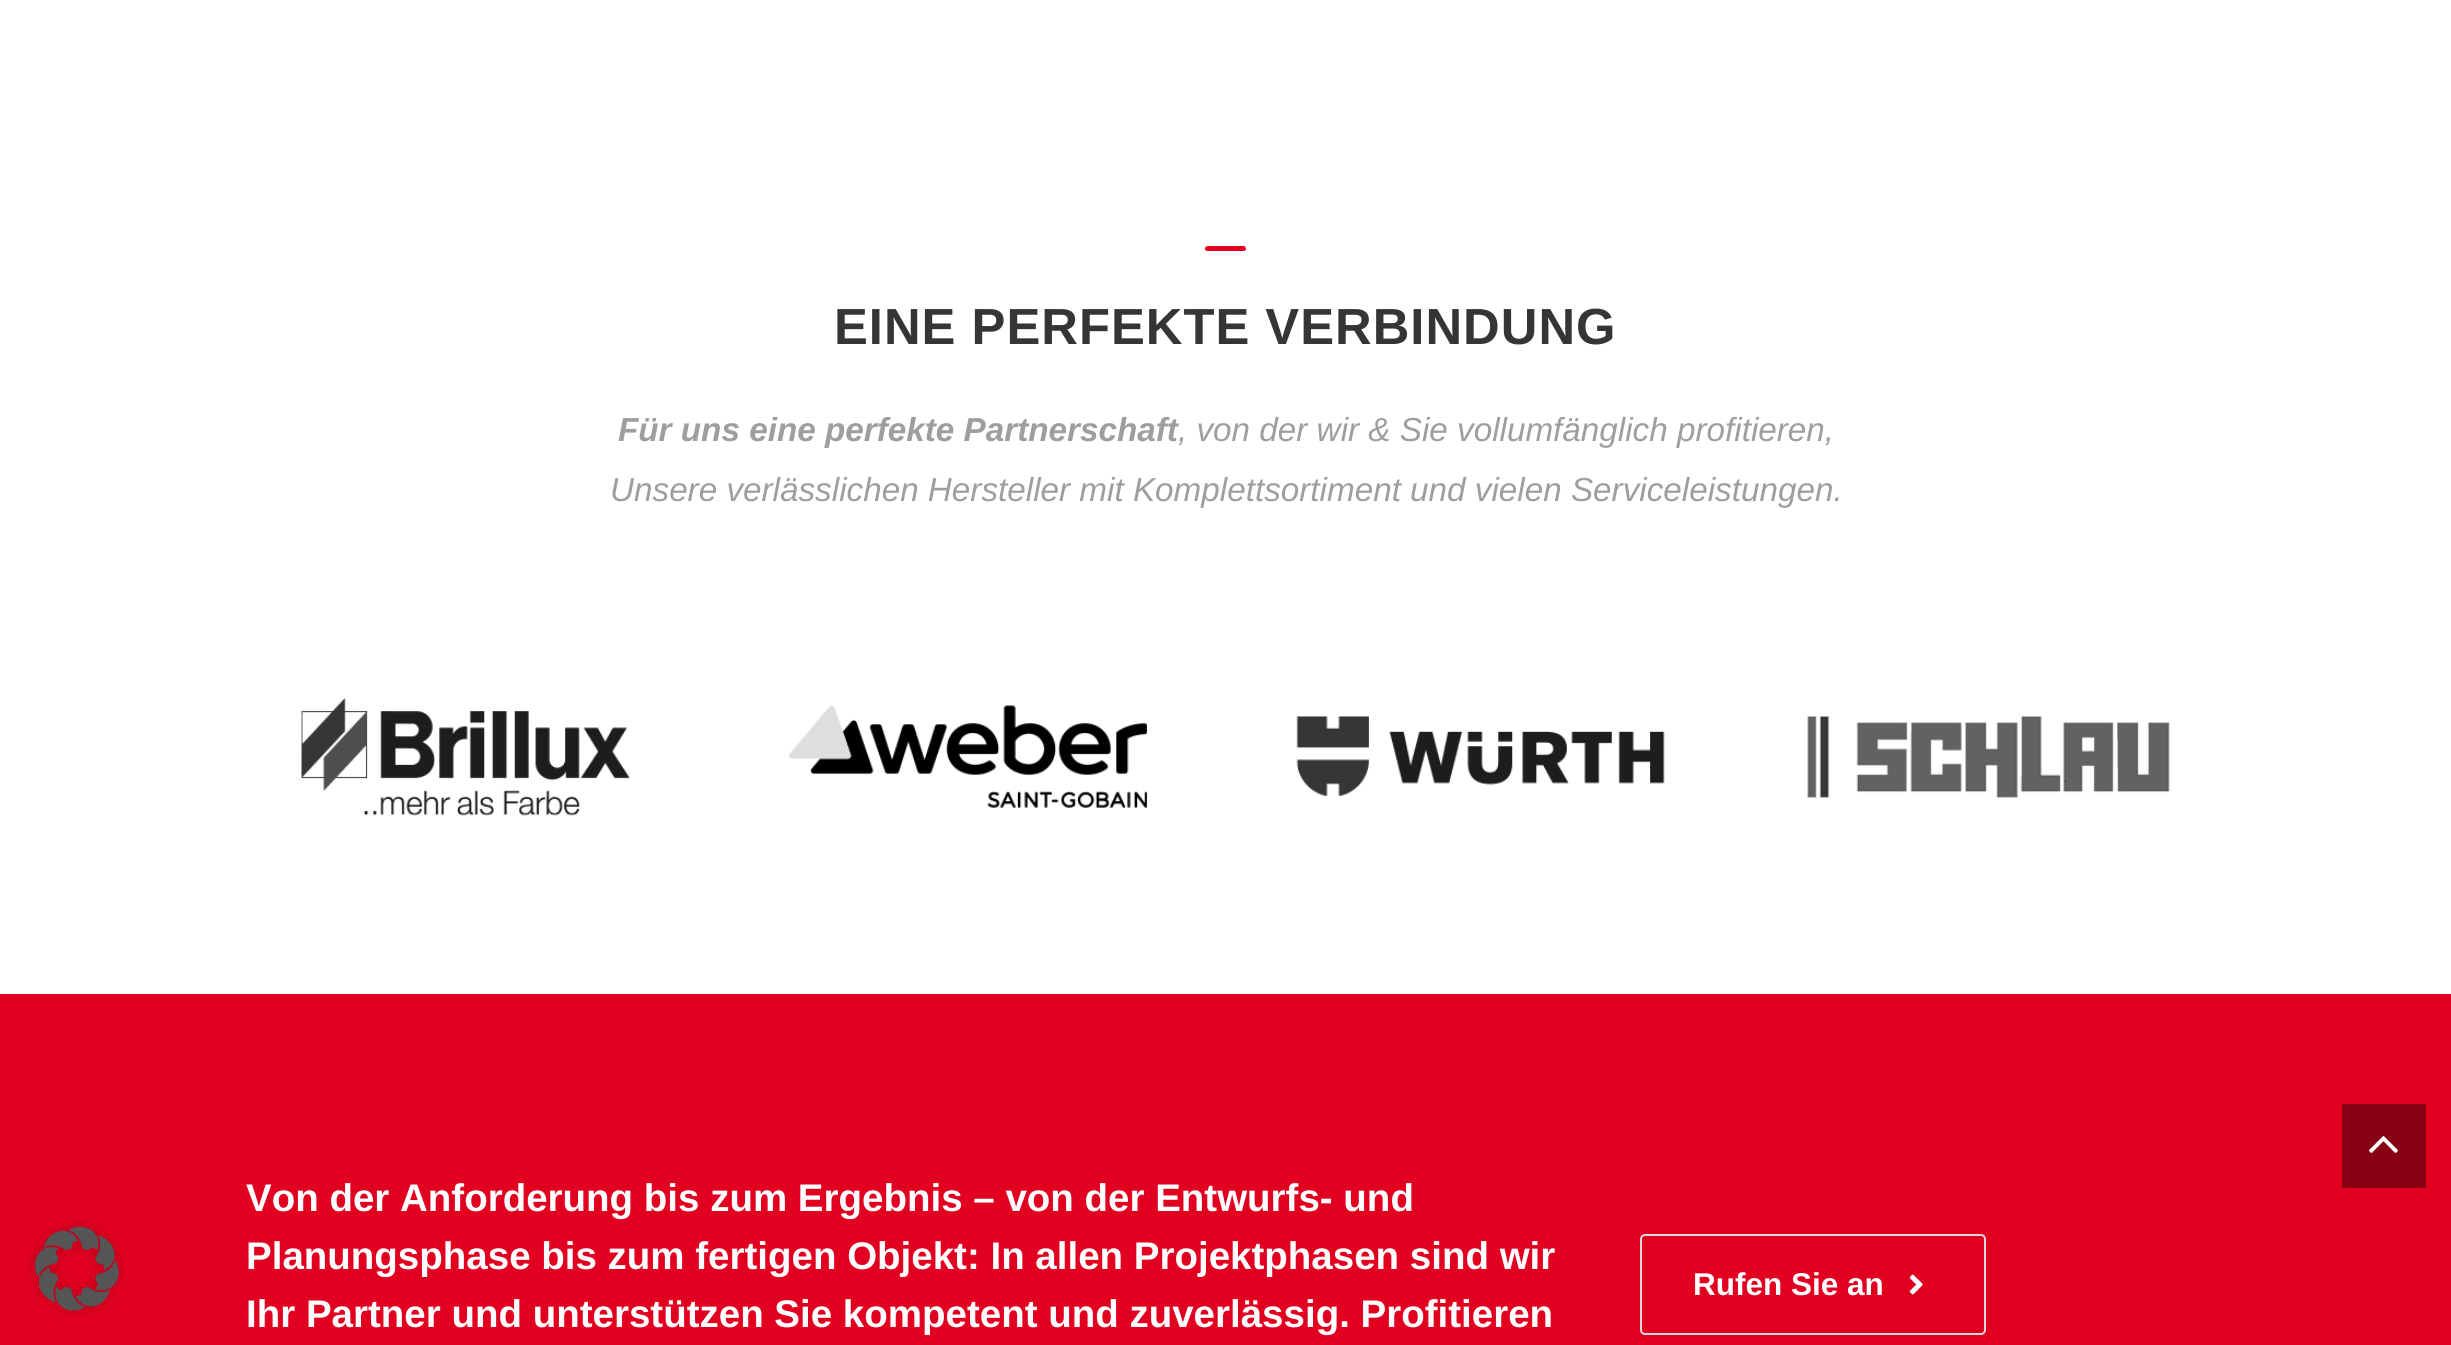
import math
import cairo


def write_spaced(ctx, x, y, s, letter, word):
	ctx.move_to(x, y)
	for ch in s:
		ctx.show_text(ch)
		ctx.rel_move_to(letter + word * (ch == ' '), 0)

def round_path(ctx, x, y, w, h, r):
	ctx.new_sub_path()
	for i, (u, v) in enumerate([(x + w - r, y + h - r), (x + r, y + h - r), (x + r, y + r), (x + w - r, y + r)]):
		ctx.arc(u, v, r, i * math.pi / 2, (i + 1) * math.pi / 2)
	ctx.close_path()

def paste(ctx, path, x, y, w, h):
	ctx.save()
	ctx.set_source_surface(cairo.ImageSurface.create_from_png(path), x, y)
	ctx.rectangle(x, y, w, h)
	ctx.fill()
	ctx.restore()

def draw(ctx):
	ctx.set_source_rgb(1, 1, 1)
	ctx.paint()
	ctx.set_source_rgb(0.886, 0, 0.125)
	ctx.new_path()
	ctx.move_to(1205, 249)
	ctx.curve_to(1205, 247, 1206, 246, 1208, 246)
	ctx.line_to(1243, 246)
	ctx.curve_to(1245, 246, 1246, 247, 1246, 249)
	ctx.curve_to(1246, 250, 1245, 251, 1243, 251)
	ctx.line_to(1208, 251)
	ctx.curve_to(1206, 251, 1205, 250, 1205, 249)
	ctx.close_path()
	ctx.fill()
	ctx.select_font_face('Liberation Sans', cairo.FONT_SLANT_NORMAL, cairo.FONT_WEIGHT_BOLD)
	ctx.set_font_size(50.75)
	ctx.set_source_rgb(0.208, 0.208, 0.208)
	write_spaced(ctx, 834, 344, 'EINE PERFEKTE VERBINDUNG', 1, 0)
	ctx.select_font_face('Liberation Sans', cairo.FONT_SLANT_ITALIC, cairo.FONT_WEIGHT_BOLD)
	ctx.set_font_size(33.25)
	ctx.set_source_rgb(0.62, 0.62, 0.62)
	ctx.move_to(618, 441)
	ctx.show_text('Für uns eine perfekte Partnerschaft')
	ctx.select_font_face('Liberation Sans', cairo.FONT_SLANT_ITALIC)
	ctx.move_to(1178, 441)
	ctx.show_text(', von der wir & Sie vollumfänglich profitieren,')
	ctx.move_to(610, 501)
	ctx.show_text('Unsere verlässlichen Hersteller mit Komplettsortiment und vielen Serviceleistungen.')
	paste(ctx, 'media/1.png', 301, 697, 329, 119)
	paste(ctx, 'media/2.png', 789, 705, 359, 103)
	paste(ctx, 'media/3.png', 1296, 715, 369, 81)
	paste(ctx, 'media/4.png', 1807, 716, 363, 82)
	ctx.set_source_rgb(0.886, 0, 0.125)
	ctx.rectangle(0, 994, 2451, 351)
	ctx.fill()
	ctx.set_source_rgb(0.533, 0, 0.075)
	ctx.rectangle(2342, 1104, 84, 84)
	ctx.fill()
	paste(ctx, 'media/5.png', 2369, 1136, 29, 17)
	paste(ctx, 'media/6.png', 28, 1220, 98, 97)
	ctx.select_font_face('Liberation Sans', cairo.FONT_SLANT_NORMAL, cairo.FONT_WEIGHT_BOLD)
	ctx.set_font_size(38.5)
	ctx.set_source_rgb(1, 1, 1)
	for x, y, s in [
		(246, 1211, 'Von der Anforderung bis zum Ergebnis – von der Entwurfs- und'),
		(246, 1269, 'Planungsphase bis zum fertigen Objekt: In allen Projektphasen sind wir'),
		(246, 1327, 'Ihr Partner und unterstützen Sie kompetent und zuverlässig. Profitieren'),
	]:
		ctx.move_to(x, y)
		ctx.show_text(s)
	round_path(ctx, 1641, 1235, 344, 99, 4)
	ctx.set_source_rgb(0.835, 0.843, 0.882)
	ctx.stroke()
	ctx.set_font_size(31.5)
	ctx.set_source_rgb(1, 1, 1)
	ctx.move_to(1693, 1295)
	ctx.show_text('Rufen Sie an')
	paste(ctx, 'media/7.png', 1909, 1274, 14, 21)


surface = cairo.ImageSurface(cairo.FORMAT_RGB24, 2451, 1345)
ctx = cairo.Context(surface)
options = cairo.FontOptions()
options.set_hint_metrics(cairo.HINT_METRICS_OFF)
options.set_hint_style(cairo.HINT_STYLE_NONE)
ctx.set_font_options(options)
ctx.set_miter_limit(4)
draw(ctx)
surface.write_to_png('image.png')
